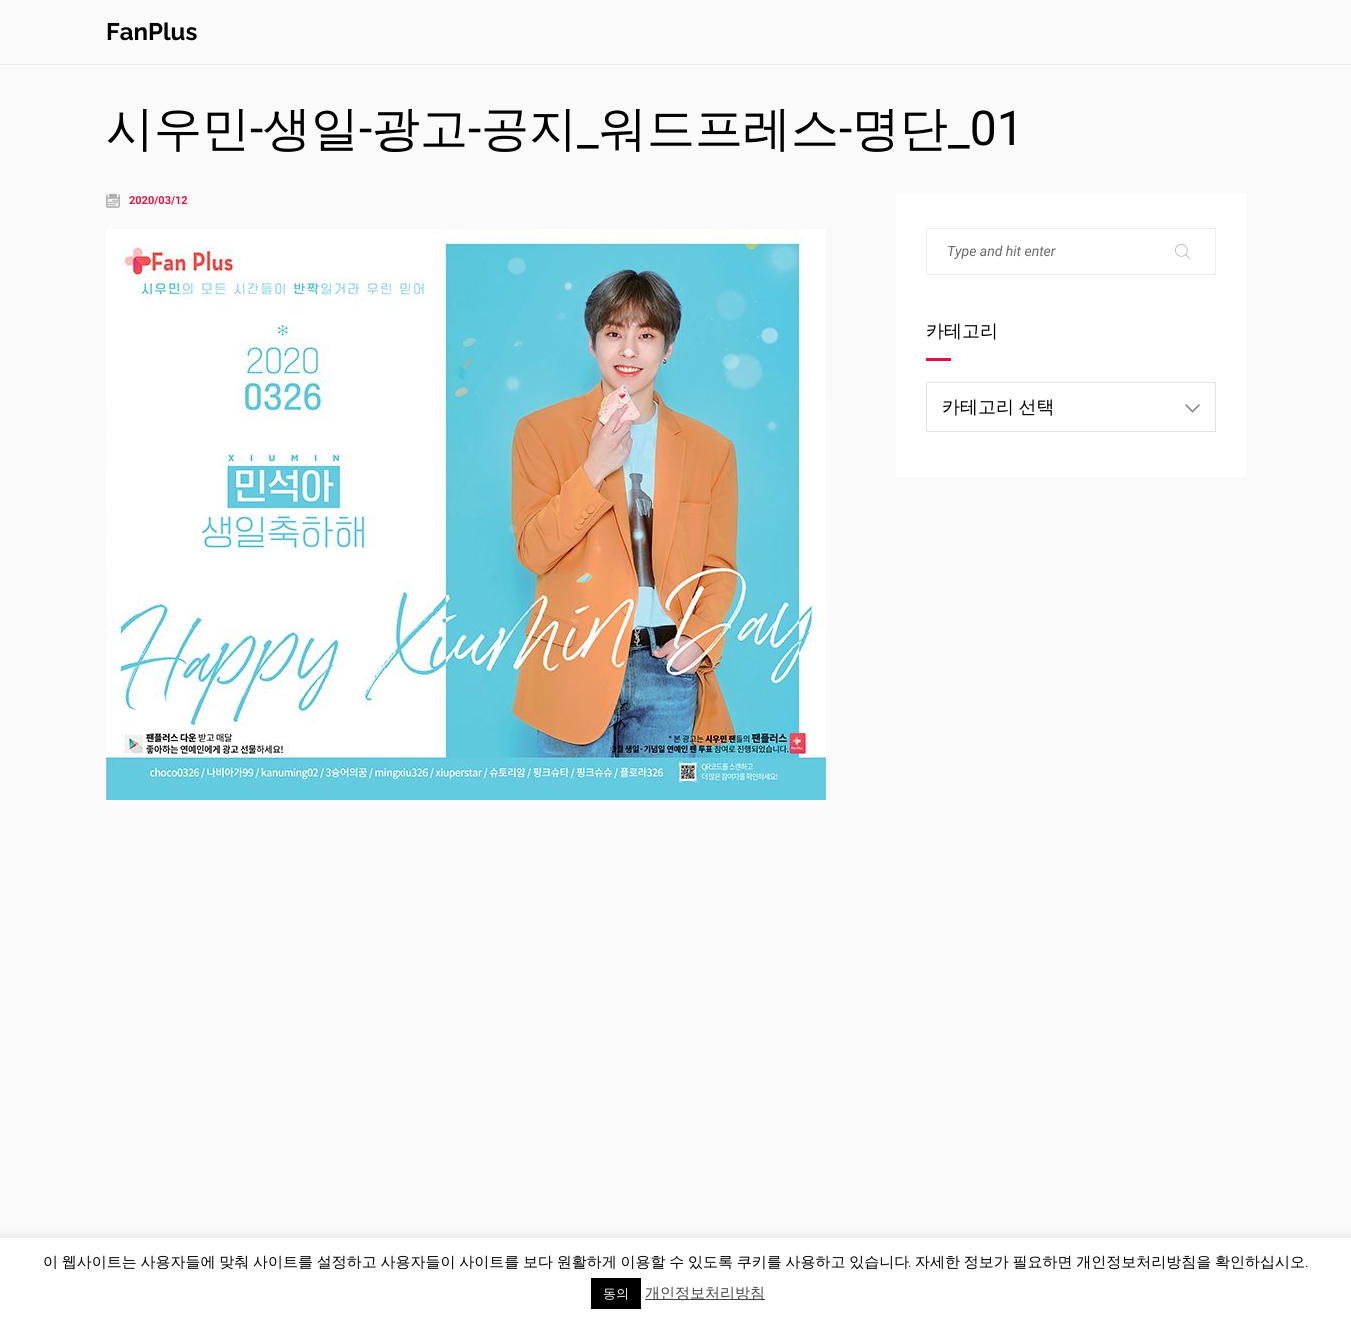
import math
import cairo


def write_spaced(ctx, x, y, s, letter, word):
	ctx.move_to(x, y)
	for ch in s:
		ctx.show_text(ch)
		ctx.rel_move_to(letter + word * (ch == ' '), 0)

def round_path(ctx, x, y, w, h, r):
	ctx.new_sub_path()
	for i, (u, v) in enumerate([(x + w - r, y + h - r), (x + r, y + h - r), (x + r, y + r), (x + w - r, y + r)]):
		ctx.arc(u, v, r, i * math.pi / 2, (i + 1) * math.pi / 2)
	ctx.close_path()

def blur_box(ctx, x, y, w, h, r, blur, alpha):
	ctx.push_group_with_content(cairo.CONTENT_ALPHA)
	ctx.set_operator(cairo.OPERATOR_SOURCE)
	for i in range(15, -16, -2):
		e = blur * i / 6
		if min(w, h) + 2 * e > 0:
			ctx.set_source_rgba(0, 0, 0, alpha * math.erfc((i - 1) / 8.5) / 2)
			round_path(ctx, x - e, y - e, w + 2 * e, h + 2 * e, max(0, min(r + e + blur * .6, min(w, h) / 2 + e)))
			ctx.fill()
	ctx.mask(ctx.pop_group())

def paste(ctx, path, x, y, w, h):
	ctx.save()
	ctx.set_source_surface(cairo.ImageSurface.create_from_png(path), x, y)
	ctx.rectangle(x, y, w, h)
	ctx.fill()
	ctx.restore()

def draw(ctx):
	ctx.set_source_rgb(0.98, 0.98, 0.98)
	ctx.paint()
	ctx.set_source_rgb(0.922, 0.922, 0.922)
	ctx.rectangle(0, 64, 1351, 1)
	ctx.fill()
	ctx.select_font_face('Raleway', cairo.FONT_SLANT_NORMAL, cairo.FONT_WEIGHT_BOLD)
	ctx.set_font_size(24)
	ctx.set_source_rgb(0, 0, 0)
	ctx.move_to(106, 40)
	ctx.show_text('FanPlus')
	ctx.select_font_face('WenQuanYi Zen Hei Medium')
	ctx.set_font_size(48)
	ctx.move_to(106, 145)
	ctx.show_text('시우민')
	ctx.select_font_face('Roboto')
	ctx.move_to(250, 145)
	ctx.show_text('-')
	ctx.select_font_face('WenQuanYi Zen Hei Medium')
	ctx.move_to(263, 145)
	ctx.show_text('생일')
	ctx.select_font_face('Roboto')
	ctx.move_to(359, 145)
	ctx.show_text('-')
	ctx.select_font_face('WenQuanYi Zen Hei Medium')
	ctx.move_to(372, 145)
	ctx.show_text('광고')
	ctx.select_font_face('Roboto')
	ctx.move_to(468, 145)
	ctx.show_text('-')
	ctx.select_font_face('WenQuanYi Zen Hei Medium')
	ctx.move_to(481, 145)
	ctx.show_text('공지')
	ctx.move_to(599, 145)
	ctx.show_text('워드프레스')
	ctx.select_font_face('Roboto')
	ctx.move_to(839, 145)
	ctx.show_text('-')
	ctx.select_font_face('WenQuanYi Zen Hei Medium')
	ctx.move_to(852, 145)
	ctx.show_text('명단')
	ctx.select_font_face('Roboto')
	ctx.move_to(948, 145)
	ctx.show_text('_01')
	ctx.move_to(577, 145)
	ctx.show_text('_')
	paste(ctx, 'media/1.png', 106, 193, 14, 15)
	ctx.select_font_face('Roboto', cairo.FONT_SLANT_NORMAL, cairo.FONT_WEIGHT_BOLD)
	ctx.set_font_size(11)
	ctx.set_source_rgb(0.89, 0.063, 0.263)
	ctx.move_to(129, 204)
	ctx.show_text('2020/03/12')
	paste(ctx, 'media/2.png', 106, 229, 720, 571)
	ctx.set_source_rgb(1, 1, 1)
	ctx.rectangle(896, 193, 350, 284)
	ctx.fill()
	ctx.rectangle(926.5, 228.5, 289, 46)
	ctx.set_source_rgb(0.933, 0.933, 0.933)
	ctx.set_line_width(1)
	ctx.stroke()
	ctx.select_font_face('Roboto', cairo.FONT_SLANT_ITALIC)
	ctx.set_font_size(14)
	ctx.set_source_rgb(0.416, 0.416, 0.416)
	ctx.move_to(947, 256)
	ctx.show_text('Type and hit enter')
	paste(ctx, 'media/3.png', 1175, 244, 15, 15)
	ctx.select_font_face('WenQuanYi Zen Hei Medium')
	ctx.set_font_size(18)
	ctx.set_source_rgb(0, 0, 0)
	ctx.move_to(926, 337)
	ctx.show_text('카테고리')
	ctx.set_source_rgb(0.89, 0.063, 0.263)
	ctx.rectangle(926, 358, 25, 3)
	ctx.fill()
	paste(ctx, 'media/4.png', 1185, 404, 15, 9)
	ctx.rectangle(926.5, 382.5, 289, 49)
	ctx.set_source_rgb(0.89, 0.89, 0.89)
	ctx.stroke()
	ctx.set_source_rgb(0, 0, 0)
	write_spaced(ctx, 942, 413, '카테고리 선택', 0, -1)
	ctx.set_source_rgb(0.675, 0.671, 0.671)
	blur_box(ctx, 0, 1237, 1351, 83, 0, 5, 0.3)
	ctx.set_source_rgb(1, 1, 1)
	ctx.rectangle(0, 1238, 1351, 83)
	ctx.fill()
	ctx.set_font_size(15)
	ctx.set_source_rgb(0, 0, 0)
	write_spaced(ctx, 43, 1267, '이 웹사이트는 사용자들에 맞춰 사이트를 설정하고 사용자들이 사이트를 보다 원활하게 이용할 수 있도록 쿠키를 사용하고 있습니다', 0, -0.75)
	ctx.select_font_face('Roboto Light')
	ctx.move_to(908, 1267)
	ctx.show_text('.')
	ctx.select_font_face('WenQuanYi Zen Hei Medium')
	write_spaced(ctx, 915, 1267, '자세한 정보가 필요하면 개인정보처리방침을 확인하십시오', 0, -0.75)
	ctx.select_font_face('Roboto Light')
	ctx.move_to(1305, 1267)
	ctx.show_text('.')
	ctx.rectangle(591, 1278, 50, 31)
	ctx.fill()
	ctx.select_font_face('WenQuanYi Zen Hei Medium')
	ctx.set_font_size(13)
	ctx.set_source_rgb(1, 1, 1)
	ctx.move_to(603, 1298)
	ctx.show_text('동의')
	ctx.set_source_rgb(0.267, 0.267, 0.267)
	ctx.rectangle(645, 1299, 120, 1)
	ctx.fill()
	ctx.set_font_size(15)
	ctx.move_to(645, 1298)
	ctx.show_text('개인정보처리방침')


surface = cairo.ImageSurface(cairo.FORMAT_RGB24, 1351, 1321)
ctx = cairo.Context(surface)
options = cairo.FontOptions()
options.set_hint_metrics(cairo.HINT_METRICS_OFF)
options.set_hint_style(cairo.HINT_STYLE_NONE)
ctx.set_font_options(options)
ctx.set_miter_limit(4)
draw(ctx)
surface.write_to_png('image.png')
